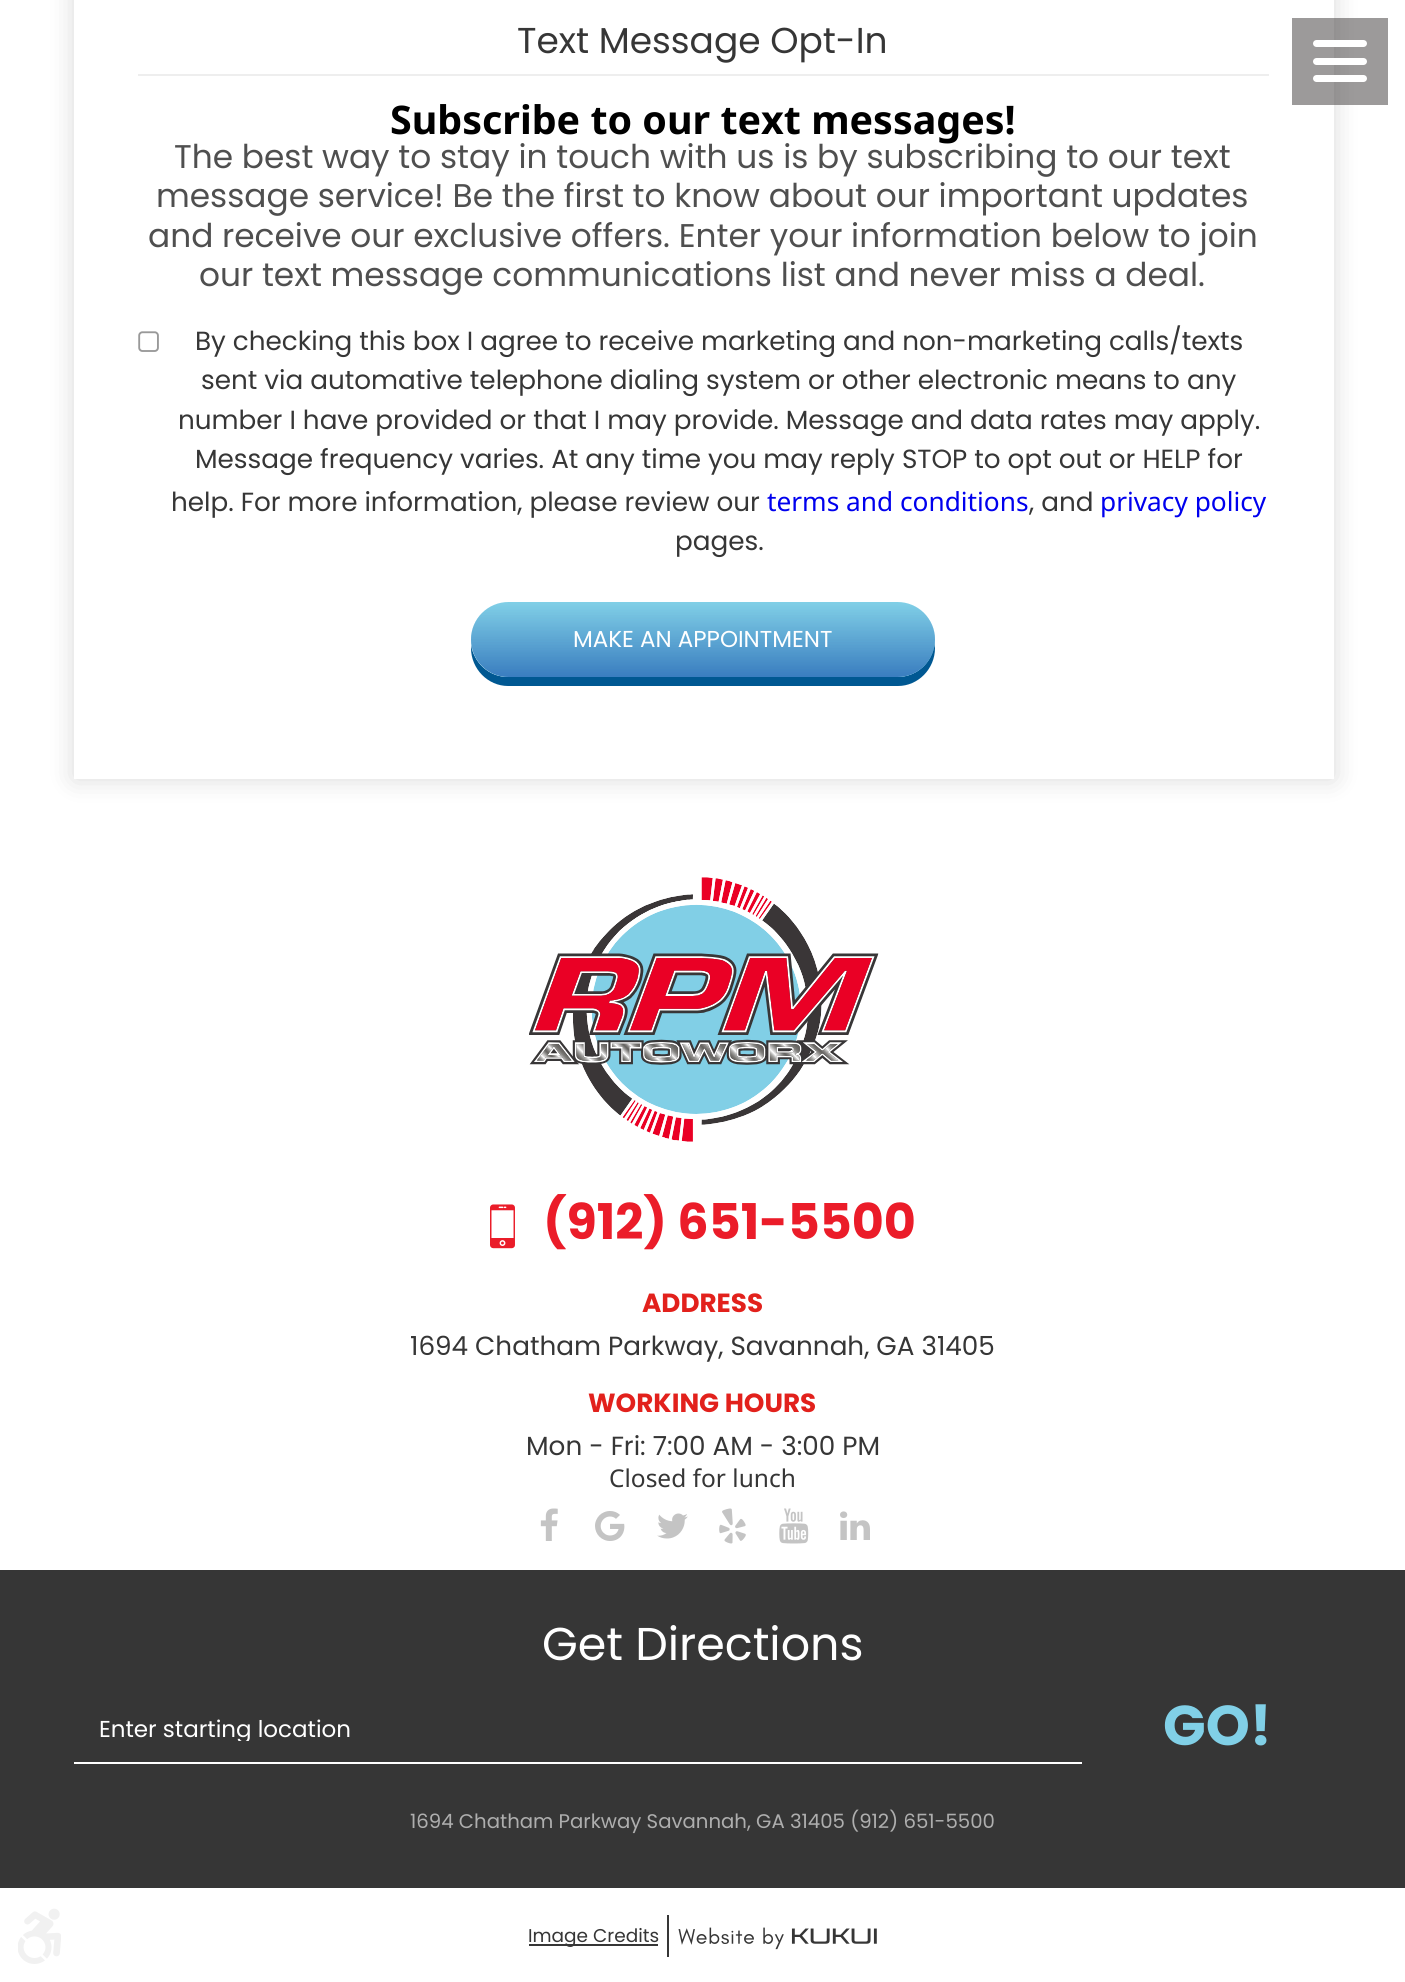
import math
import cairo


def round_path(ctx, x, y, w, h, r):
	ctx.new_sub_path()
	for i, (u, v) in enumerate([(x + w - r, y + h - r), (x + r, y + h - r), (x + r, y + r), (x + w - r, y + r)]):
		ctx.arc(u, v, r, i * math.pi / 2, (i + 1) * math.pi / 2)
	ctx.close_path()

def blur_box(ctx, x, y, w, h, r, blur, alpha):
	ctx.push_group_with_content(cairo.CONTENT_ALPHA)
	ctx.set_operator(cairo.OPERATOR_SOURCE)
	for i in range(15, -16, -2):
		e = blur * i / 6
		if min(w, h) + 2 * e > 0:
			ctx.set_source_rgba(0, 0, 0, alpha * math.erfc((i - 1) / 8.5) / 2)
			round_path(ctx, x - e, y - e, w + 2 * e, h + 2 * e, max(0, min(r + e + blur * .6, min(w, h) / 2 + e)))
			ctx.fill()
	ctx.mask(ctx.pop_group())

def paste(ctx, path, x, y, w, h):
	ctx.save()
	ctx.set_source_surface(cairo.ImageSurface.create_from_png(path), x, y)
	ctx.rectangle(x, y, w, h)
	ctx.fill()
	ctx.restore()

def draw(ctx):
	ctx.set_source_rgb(1, 1, 1)
	ctx.paint()
	paste(ctx, 'media/1.png', 18, 1908, 43, 56)
	ctx.set_source_rgb(0, 0, 0)
	blur_box(ctx, 74, -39, 1260, 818, 0, 13, 0.15)
	ctx.set_source_rgb(1, 1, 1)
	ctx.rectangle(74, 0, 1260, 779)
	ctx.fill()
	ctx.set_source_rgb(0.933, 0.933, 0.933)
	ctx.rectangle(138, 74, 1131, 2)
	ctx.fill()
	ctx.select_font_face('Poppins')
	ctx.set_font_size(36)
	ctx.set_source_rgb(0.212, 0.212, 0.212)
	ctx.move_to(517, 53)
	ctx.show_text('Text Message Opt-In')
	ctx.select_font_face('Noto Sans', cairo.FONT_SLANT_NORMAL, cairo.FONT_WEIGHT_BOLD)
	ctx.set_font_size(39.4)
	ctx.set_source_rgb(0, 0, 0)
	ctx.move_to(390, 134)
	ctx.show_text('Subscribe to our text messages!')
	ctx.select_font_face('Poppins')
	ctx.set_font_size(32.8)
	ctx.set_source_rgb(0.31, 0.31, 0.31)
	for x, y, s in [
		(174, 168, 'The best way to stay in touch with us is by subscribing to our text'),
		(156, 207, 'message service! Be the first to know about our important updates'),
		(148, 247, 'and receive our exclusive offers. Enter your information below to join'),
		(199, 286, 'our text message communications list and never miss a deal.'),
	]:
		ctx.move_to(x, y)
		ctx.show_text(s)
	paste(ctx, 'media/2.png', 138, 331, 21, 21)
	ctx.set_font_size(26.25)
	ctx.set_source_rgb(0.212, 0.212, 0.212)
	for x, y, s in [
		(195, 350, 'By checking this box I agree to receive marketing and non-marketing calls/texts'),
		(201, 389, 'sent via automative telephone dialing system or other electronic means to any'),
		(178, 429, 'number I have provided or that I may provide. Message and data rates may apply.'),
		(195, 468, 'Message frequency varies. At any time you may reply STOP to opt out or HELP for'),
		(171, 511, 'help. For more information, please review our'),
	]:
		ctx.move_to(x, y)
		ctx.show_text(s)
	ctx.select_font_face('Noto Sans')
	ctx.set_source_rgb(0, 0, 0.933)
	ctx.move_to(767, 511)
	ctx.show_text('terms and conditions')
	ctx.select_font_face('Poppins')
	ctx.set_source_rgb(0.212, 0.212, 0.212)
	ctx.move_to(1029, 511)
	ctx.show_text(', and')
	ctx.select_font_face('Noto Sans')
	ctx.set_source_rgb(0, 0, 0.933)
	ctx.move_to(1100, 511)
	ctx.show_text('privacy policy')
	ctx.select_font_face('Poppins')
	ctx.set_source_rgb(0.212, 0.212, 0.212)
	ctx.move_to(675, 550)
	ctx.show_text('pages.')
	ctx.set_source_rgb(0, 0.345, 0.573)
	ctx.new_path()
	ctx.move_to(471, 645)
	ctx.line_to(471, 648)
	ctx.curve_to(471, 669, 488, 686, 508, 686)
	ctx.line_to(898, 686)
	ctx.curve_to(918, 686, 935, 669, 935, 648)
	ctx.line_to(934, 642)
	ctx.curve_to(933, 662, 917, 677, 897, 677)
	ctx.line_to(508, 677)
	ctx.curve_to(489, 677, 474, 663, 471, 645)
	ctx.close_path()
	ctx.fill()
	ctx.set_source_rgb(0.506, 0.816, 0.906)
	round_path(ctx, 471, 602, 464, 75, 37.5)
	ctx.fill()
	gradient = cairo.LinearGradient(703, 602, 703, 677)
	gradient.add_color_stop_rgba(0, 0.224, 0.49, 0.749, 0)
	gradient.add_color_stop_rgba(1, 0.224, 0.49, 0.749, 1)
	ctx.set_source(gradient)
	round_path(ctx, 471, 602, 464, 75, 37.5)
	ctx.fill()
	ctx.set_font_size(23)
	ctx.set_source_rgb(1, 1, 1)
	ctx.move_to(573, 647)
	ctx.show_text('MAKE AN APPOINTMENT')
	paste(ctx, 'media/3.png', 529, 877, 350, 265)
	paste(ctx, 'media/4.png', 490, 1204, 25, 45)
	ctx.select_font_face('Poppins', cairo.FONT_SLANT_NORMAL, cairo.FONT_WEIGHT_BOLD)
	ctx.set_font_size(49.25)
	ctx.set_source_rgb(0.918, 0.11, 0.161)
	ctx.move_to(543, 1239)
	ctx.show_text('(912) 651-5500')
	ctx.set_font_size(26.25)
	ctx.set_source_rgb(0.886, 0.129, 0.11)
	ctx.move_to(642, 1312)
	ctx.show_text('ADDRESS')
	ctx.select_font_face('Poppins')
	ctx.set_source_rgb(0.212, 0.212, 0.212)
	ctx.move_to(410, 1355)
	ctx.show_text('1694 Chatham Parkway, Savannah, GA 31405')
	ctx.select_font_face('Poppins', cairo.FONT_SLANT_NORMAL, cairo.FONT_WEIGHT_BOLD)
	ctx.set_source_rgb(0.886, 0.129, 0.11)
	ctx.move_to(588, 1412)
	ctx.show_text('WORKING HOURS')
	ctx.select_font_face('Poppins')
	ctx.set_source_rgb(0.212, 0.212, 0.212)
	ctx.move_to(526, 1455)
	ctx.show_text('Mon - Fri: 7:00 AM - 3:00 PM')
	ctx.select_font_face('Noto Sans')
	ctx.set_font_size(24.5)
	ctx.move_to(609, 1487)
	ctx.show_text('Closed for lunch')
	paste(ctx, 'media/5.png', 540, 1508, 18, 33)
	paste(ctx, 'media/6.png', 595, 1511, 30, 30)
	paste(ctx, 'media/7.png', 657, 1513, 31, 26)
	paste(ctx, 'media/8.png', 719, 1508, 27, 36)
	paste(ctx, 'media/9.png', 779, 1508, 30, 36)
	paste(ctx, 'media/10.png', 840, 1511, 30, 29)
	ctx.rectangle(0, 1570, 1405, 318)
	ctx.fill()
	ctx.select_font_face('Poppins')
	ctx.set_font_size(46)
	ctx.set_source_rgb(1, 1, 1)
	ctx.move_to(542, 1660)
	ctx.show_text('Get Directions')
	ctx.rectangle(74, 1762, 1008, 2)
	ctx.fill()
	ctx.save()
	ctx.rectangle(100, 1719, 955, 22)
	ctx.clip()
	ctx.set_font_size(23)
	ctx.move_to(99, 1737)
	ctx.show_text('Enter starting location')
	ctx.restore()
	ctx.select_font_face('Poppins', cairo.FONT_SLANT_NORMAL, cairo.FONT_WEIGHT_BOLD)
	ctx.set_font_size(56)
	ctx.set_source_rgb(0.506, 0.816, 0.906)
	ctx.move_to(1163, 1745)
	ctx.show_text('GO!')
	ctx.select_font_face('Poppins')
	ctx.set_font_size(19.7)
	ctx.set_source_rgb(0.682, 0.682, 0.682)
	ctx.move_to(410, 1828)
	ctx.show_text('1694 Chatham Parkway Savannah, GA 31405 (912) 651-5500')
	ctx.set_source_rgb(0.212, 0.212, 0.212)
	ctx.rectangle(529, 1944, 129, 2)
	ctx.fill()
	ctx.set_font_size(18.5)
	ctx.move_to(528, 1942)
	ctx.show_text('Image Credits')
	ctx.rectangle(667, 1915, 2, 42)
	ctx.fill()
	paste(ctx, 'media/11.png', 678, 1927, 199, 23)
	ctx.set_source_rgba(0.227, 0.216, 0.216, 0.5)
	ctx.rectangle(1292, 18, 96, 87)
	ctx.fill()
	ctx.set_source_rgb(1, 1, 1)
	round_path(ctx, 1313, 58, 54, 7, 3.5)
	ctx.fill()
	round_path(ctx, 1313, 40, 54, 7, 3.5)
	ctx.fill()
	round_path(ctx, 1313, 75, 54, 7, 3.5)
	ctx.fill()


surface = cairo.ImageSurface(cairo.FORMAT_RGB24, 1405, 1982)
ctx = cairo.Context(surface)
options = cairo.FontOptions()
options.set_hint_metrics(cairo.HINT_METRICS_OFF)
options.set_hint_style(cairo.HINT_STYLE_NONE)
ctx.set_font_options(options)
ctx.set_miter_limit(4)
draw(ctx)
surface.write_to_png('image.png')
